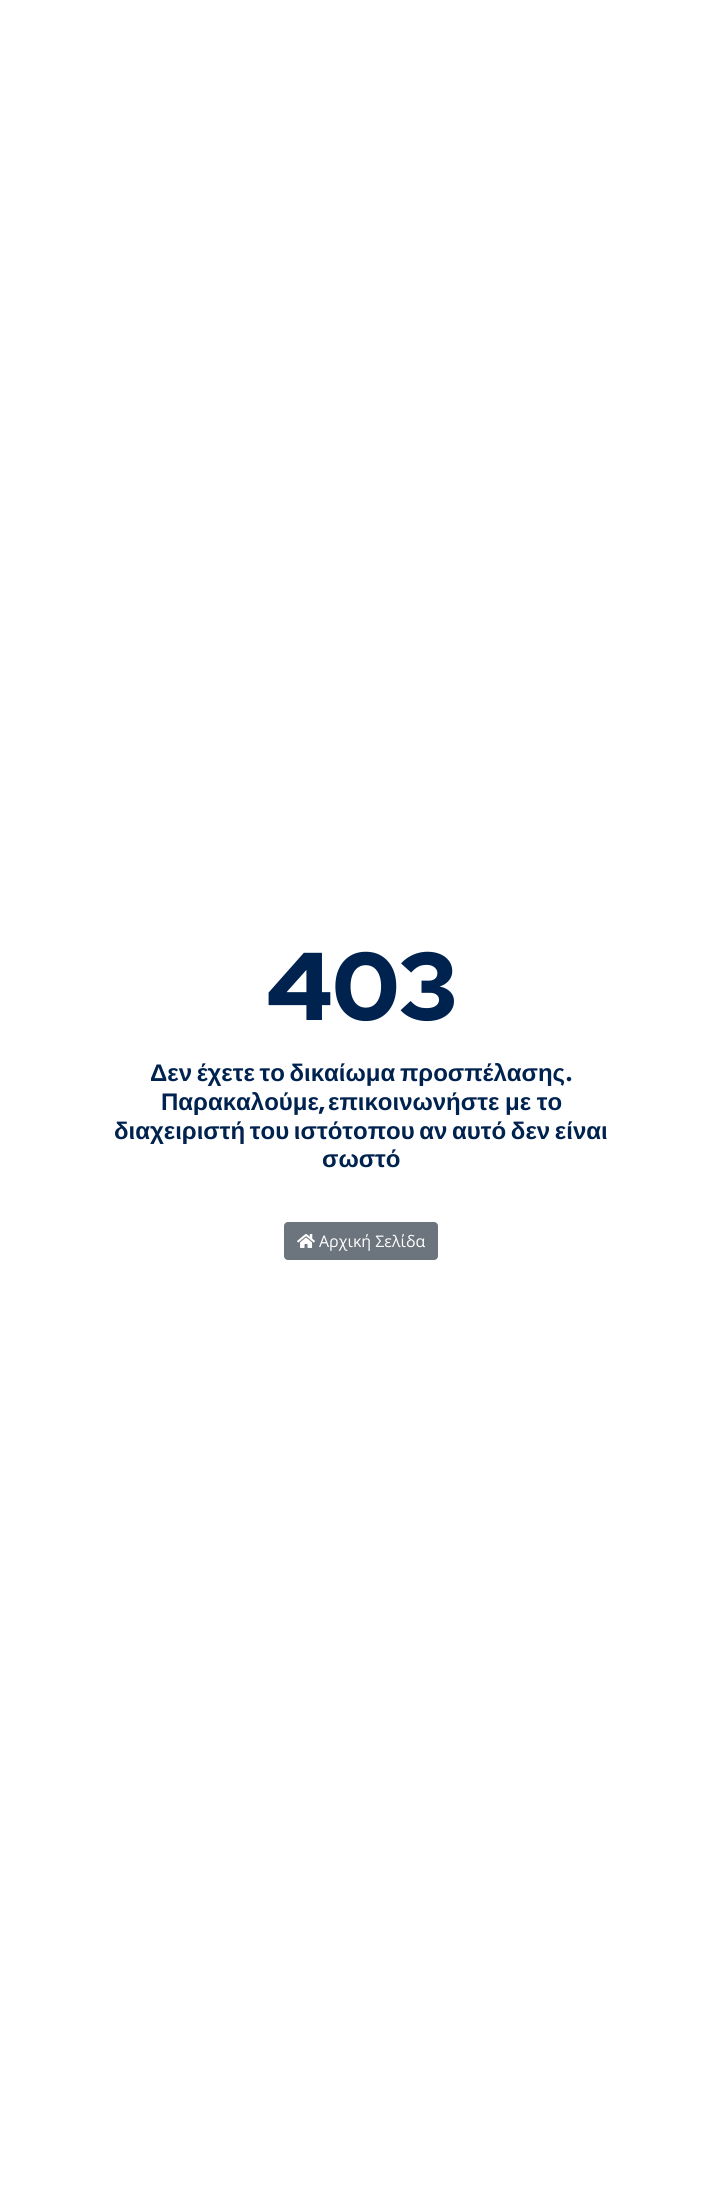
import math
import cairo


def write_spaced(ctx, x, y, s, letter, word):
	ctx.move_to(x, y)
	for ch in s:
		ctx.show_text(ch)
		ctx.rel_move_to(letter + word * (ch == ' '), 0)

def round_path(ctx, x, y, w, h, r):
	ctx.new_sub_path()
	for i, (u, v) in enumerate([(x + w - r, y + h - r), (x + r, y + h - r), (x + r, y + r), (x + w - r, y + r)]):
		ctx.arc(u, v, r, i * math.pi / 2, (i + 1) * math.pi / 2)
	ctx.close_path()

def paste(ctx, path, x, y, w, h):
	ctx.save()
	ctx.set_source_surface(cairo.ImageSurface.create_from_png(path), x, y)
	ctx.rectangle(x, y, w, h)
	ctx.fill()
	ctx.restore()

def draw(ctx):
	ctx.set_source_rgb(1, 1, 1)
	ctx.paint()
	ctx.select_font_face('Red Hat Display Black')
	ctx.set_font_size(96)
	ctx.set_source_rgb(0, 0.133, 0.31)
	ctx.move_to(266, 1020)
	ctx.show_text('403')
	ctx.select_font_face('Liberation Sans', cairo.FONT_SLANT_NORMAL, cairo.FONT_WEIGHT_BOLD)
	ctx.set_font_size(24)
	write_spaced(ctx, 150, 1081, 'Δεν έχετε το δικαίωμα προσπέλασης', 0, -2)
	ctx.select_font_face('Red Hat Display Black')
	ctx.move_to(566, 1081)
	ctx.show_text('.')
	ctx.select_font_face('Liberation Sans', cairo.FONT_SLANT_NORMAL, cairo.FONT_WEIGHT_BOLD)
	ctx.move_to(161, 1110)
	ctx.show_text('Παρακαλούμε')
	ctx.select_font_face('Red Hat Display Black')
	ctx.move_to(319, 1110)
	ctx.show_text(',')
	ctx.select_font_face('Liberation Sans', cairo.FONT_SLANT_NORMAL, cairo.FONT_WEIGHT_BOLD)
	write_spaced(ctx, 328, 1110, 'επικοινωνήστε με το', 0, -1)
	write_spaced(ctx, 114, 1139, 'διαχειριστή του ιστότοπου αν αυτό δεν είναι', 0, -2)
	ctx.move_to(322, 1167)
	ctx.show_text('σωστό')
	ctx.set_source_rgb(0.424, 0.459, 0.49)
	round_path(ctx, 284.5, 1222.5, 153, 37, 3.5)
	ctx.fill_preserve()
	ctx.set_line_width(1)
	ctx.stroke()
	paste(ctx, 'media/1.png', 297, 1234, 18, 14)
	ctx.select_font_face('Open Sans')
	ctx.set_font_size(16)
	ctx.set_source_rgb(1, 1, 1)
	ctx.move_to(319, 1247)
	ctx.show_text('Αρχική Σελίδα')


surface = cairo.ImageSurface(cairo.FORMAT_RGB24, 722, 2188)
ctx = cairo.Context(surface)
options = cairo.FontOptions()
options.set_hint_metrics(cairo.HINT_METRICS_OFF)
options.set_hint_style(cairo.HINT_STYLE_NONE)
ctx.set_font_options(options)
ctx.set_miter_limit(4)
draw(ctx)
surface.write_to_png('image.png')
